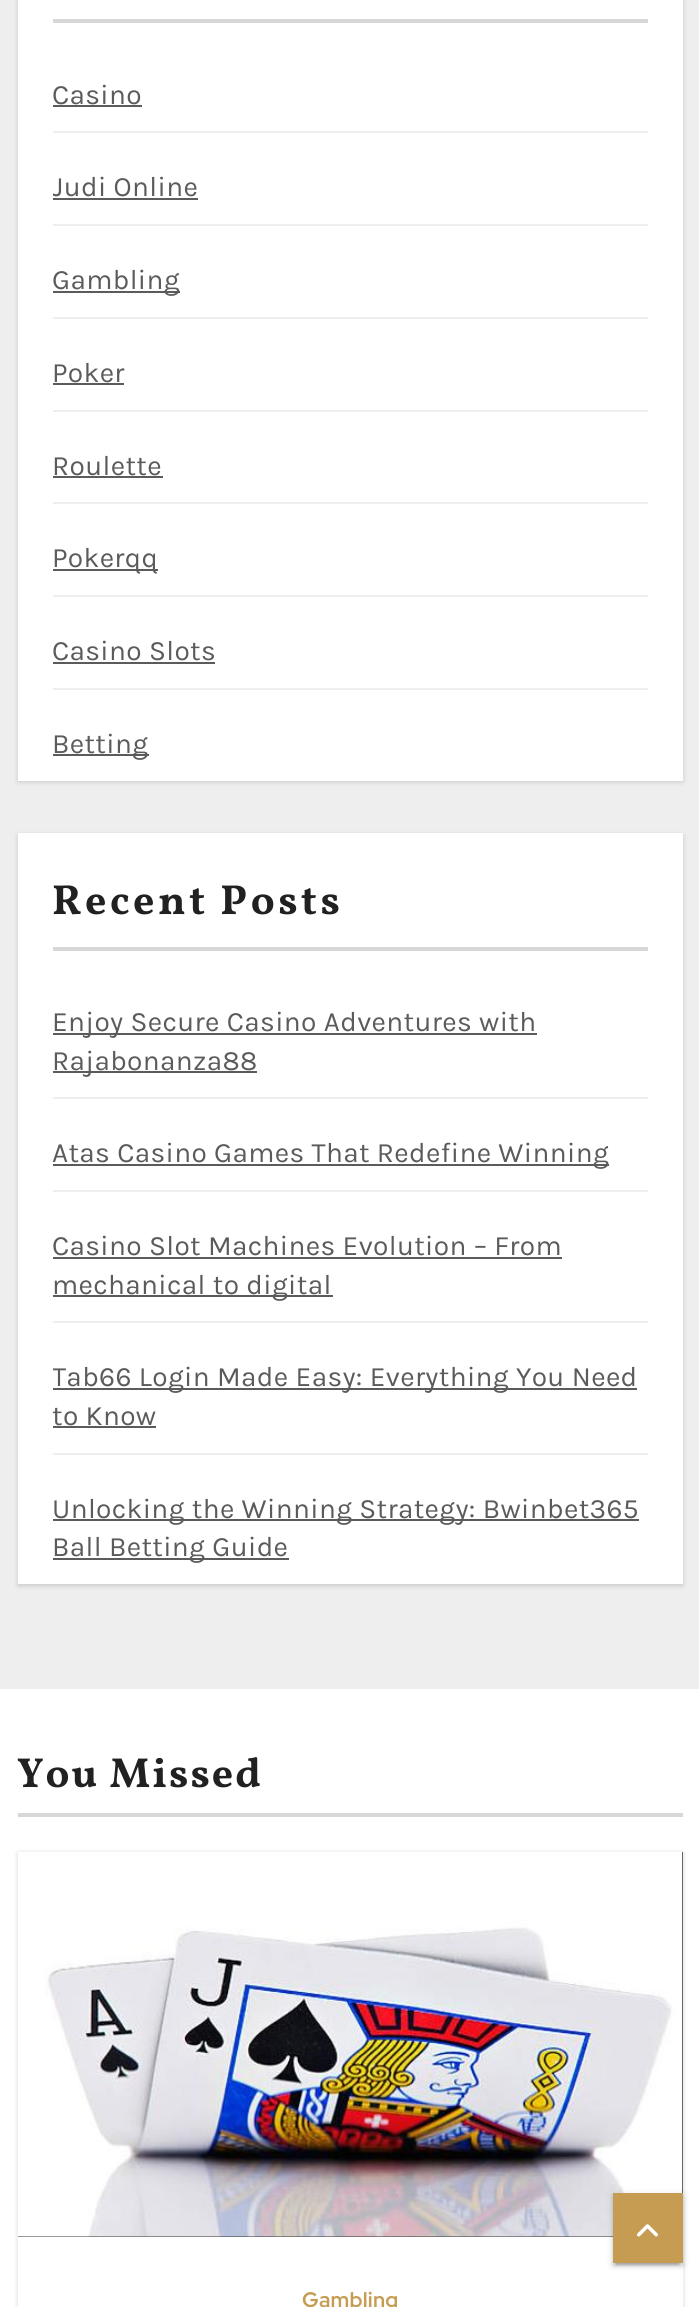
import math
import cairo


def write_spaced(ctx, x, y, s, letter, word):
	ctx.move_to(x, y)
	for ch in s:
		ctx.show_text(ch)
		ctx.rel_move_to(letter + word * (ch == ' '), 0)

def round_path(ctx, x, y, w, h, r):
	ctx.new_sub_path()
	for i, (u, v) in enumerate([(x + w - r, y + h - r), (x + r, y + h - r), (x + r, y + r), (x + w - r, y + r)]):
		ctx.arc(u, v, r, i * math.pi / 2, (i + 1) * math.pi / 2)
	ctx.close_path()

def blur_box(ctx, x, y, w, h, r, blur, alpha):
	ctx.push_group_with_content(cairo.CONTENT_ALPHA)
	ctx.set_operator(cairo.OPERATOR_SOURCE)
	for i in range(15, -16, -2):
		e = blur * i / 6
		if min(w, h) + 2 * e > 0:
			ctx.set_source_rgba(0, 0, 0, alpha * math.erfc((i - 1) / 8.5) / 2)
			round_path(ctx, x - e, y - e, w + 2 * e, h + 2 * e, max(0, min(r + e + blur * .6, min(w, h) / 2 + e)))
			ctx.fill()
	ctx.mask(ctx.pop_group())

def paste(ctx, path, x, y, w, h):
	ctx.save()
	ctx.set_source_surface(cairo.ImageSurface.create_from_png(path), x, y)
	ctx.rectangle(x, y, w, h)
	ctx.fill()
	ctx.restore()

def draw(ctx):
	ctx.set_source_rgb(0.933, 0.933, 0.933)
	ctx.paint()
	ctx.set_source_rgb(0, 0, 0)
	blur_box(ctx, 18, -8, 665, 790, 0, 2.5, 0.15)
	ctx.set_source_rgb(1, 1, 1)
	ctx.rectangle(18, 0, 665, 781)
	ctx.fill()
	ctx.set_source_rgb(0.843, 0.843, 0.843)
	ctx.rectangle(53, 19, 595, 4)
	ctx.fill()
	ctx.set_source_rgb(0.933, 0.933, 0.933)
	ctx.rectangle(53, 131, 595, 2)
	ctx.fill()
	ctx.select_font_face('Karla')
	ctx.set_font_size(28)
	ctx.set_source_rgb(0.357, 0.357, 0.357)
	write_spaced(ctx, 52, 104, 'Casino', 0.35, 0)
	ctx.rectangle(53, 105, 89, 2)
	ctx.fill()
	ctx.set_source_rgb(0.933, 0.933, 0.933)
	ctx.rectangle(53, 224, 595, 2)
	ctx.fill()
	ctx.save()
	ctx.rectangle(53, 151, 595, 73)
	ctx.clip()
	ctx.set_source_rgb(0.357, 0.357, 0.357)
	write_spaced(ctx, 52, 196, 'Judi Online', 0.35, 0)
	ctx.restore()
	ctx.set_source_rgb(0.357, 0.357, 0.357)
	ctx.rectangle(53, 198, 145, 2)
	ctx.fill()
	ctx.set_source_rgb(0.933, 0.933, 0.933)
	ctx.rectangle(53, 317, 595, 2)
	ctx.fill()
	ctx.set_source_rgb(0.357, 0.357, 0.357)
	ctx.rectangle(53, 291, 127, 2)
	ctx.fill()
	write_spaced(ctx, 52, 289, 'Gambling', 0.35, 0)
	ctx.set_source_rgb(0.933, 0.933, 0.933)
	ctx.rectangle(53, 410, 595, 2)
	ctx.fill()
	ctx.set_source_rgb(0.357, 0.357, 0.357)
	write_spaced(ctx, 52, 382, 'Poker', 0.35, 0)
	ctx.rectangle(53, 383, 71, 2)
	ctx.fill()
	ctx.set_source_rgb(0.933, 0.933, 0.933)
	ctx.rectangle(53, 502, 595, 2)
	ctx.fill()
	ctx.set_source_rgb(0.357, 0.357, 0.357)
	write_spaced(ctx, 52, 475, 'Roulette', 0.35, 0)
	ctx.rectangle(53, 476, 110, 2)
	ctx.fill()
	ctx.set_source_rgb(0.933, 0.933, 0.933)
	ctx.rectangle(53, 595, 595, 2)
	ctx.fill()
	ctx.set_source_rgb(0.357, 0.357, 0.357)
	ctx.rectangle(53, 569, 105, 2)
	ctx.fill()
	write_spaced(ctx, 52, 567, 'Pokerqq', 0.35, 0)
	ctx.set_source_rgb(0.933, 0.933, 0.933)
	ctx.rectangle(53, 688, 595, 2)
	ctx.fill()
	ctx.set_source_rgb(0.357, 0.357, 0.357)
	write_spaced(ctx, 52, 660, 'Casino Slots', 0.35, 0)
	ctx.rectangle(53, 662, 162, 2)
	ctx.fill()
	ctx.rectangle(53, 754, 96, 2)
	ctx.fill()
	write_spaced(ctx, 52, 753, 'Betting', 0.35, 0)
	ctx.set_source_rgb(0, 0, 0)
	blur_box(ctx, 18, 835, 665, 751, 0, 2.5, 0.15)
	ctx.set_source_rgb(1, 1, 1)
	ctx.rectangle(18, 833, 665, 751)
	ctx.fill()
	ctx.set_source_rgb(0.843, 0.843, 0.843)
	ctx.rectangle(53, 947, 595, 4)
	ctx.fill()
	ctx.select_font_face('Vollkorn', cairo.FONT_SLANT_NORMAL, cairo.FONT_WEIGHT_BOLD)
	ctx.set_font_size(42)
	ctx.set_source_rgb(0.129, 0.129, 0.129)
	write_spaced(ctx, 52, 914, 'Recent Posts', 3.5, 0)
	ctx.set_source_rgb(0.933, 0.933, 0.933)
	ctx.rectangle(53, 1097, 595, 2)
	ctx.fill()
	ctx.set_source_rgb(0.357, 0.357, 0.357)
	ctx.rectangle(53, 1033, 484, 2)
	ctx.fill()
	ctx.select_font_face('Karla')
	ctx.set_font_size(28)
	write_spaced(ctx, 52, 1031, 'Enjoy Secure Casino Adventures with', 0.35, 0)
	ctx.rectangle(53, 1071, 204, 2)
	ctx.fill()
	write_spaced(ctx, 52, 1070, 'Rajabonanza88', 0.35, 0)
	ctx.set_source_rgb(0.933, 0.933, 0.933)
	ctx.rectangle(53, 1190, 595, 2)
	ctx.fill()
	ctx.set_source_rgb(0.357, 0.357, 0.357)
	ctx.rectangle(53, 1164, 556, 2)
	ctx.fill()
	write_spaced(ctx, 52, 1162, 'Atas Casino Games That Redefine Winning', 0.35, 0)
	ctx.set_source_rgb(0.933, 0.933, 0.933)
	ctx.rectangle(53, 1321, 595, 2)
	ctx.fill()
	ctx.set_source_rgb(0.357, 0.357, 0.357)
	write_spaced(ctx, 52, 1255, 'Casino Slot Machines Evolution – From', 0.35, 0)
	ctx.rectangle(53, 1257, 509, 2)
	ctx.fill()
	ctx.rectangle(53, 1295, 280, 2)
	ctx.fill()
	write_spaced(ctx, 52, 1294, 'mechanical to digital', 0.35, 0)
	ctx.set_source_rgb(0.933, 0.933, 0.933)
	ctx.rectangle(53, 1453, 595, 2)
	ctx.fill()
	ctx.set_source_rgb(0.357, 0.357, 0.357)
	ctx.rectangle(53, 1388, 584, 2)
	ctx.fill()
	ctx.save()
	ctx.rectangle(53, 1341, 595, 112)
	ctx.clip()
	write_spaced(ctx, 52, 1386, 'Tab66 Login Made Easy: Everything You Need', 0.35, 0)
	ctx.restore()
	write_spaced(ctx, 52, 1425, 'to Know', 0.35, 0)
	ctx.rectangle(53, 1426, 103, 2)
	ctx.fill()
	ctx.rectangle(53, 1519, 586, 2)
	ctx.fill()
	write_spaced(ctx, 52, 1518, 'Unlocking the Winning Strategy: Bwinbet365', 0.35, 0)
	ctx.rectangle(53, 1558, 236, 2)
	ctx.fill()
	write_spaced(ctx, 52, 1556, 'Ball Betting Guide', 0.35, 0)
	ctx.set_source_rgb(1, 1, 1)
	ctx.rectangle(0, 1689, 699, 618)
	ctx.fill()
	ctx.set_source_rgb(0.843, 0.843, 0.843)
	ctx.rectangle(18, 1813, 665, 4)
	ctx.fill()
	ctx.select_font_face('Vollkorn', cairo.FONT_SLANT_NORMAL, cairo.FONT_WEIGHT_BOLD)
	ctx.set_font_size(42)
	ctx.set_source_rgb(0.129, 0.129, 0.129)
	write_spaced(ctx, 17, 1787, 'You Missed', 2, 0)
	ctx.set_source_rgb(0, 0, 0)
	blur_box(ctx, 18, 1853, 665, 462, 0, 2.5, 0.15)
	ctx.set_source_rgb(1, 1, 1)
	ctx.rectangle(18, 2237, 665, 70)
	ctx.fill()
	ctx.set_source_rgb(0.2, 0.2, 0.2)
	ctx.rectangle(18, 1852, 665, 385)
	ctx.fill()
	paste(ctx, 'media/1.png', 18, 1852, 665, 385)
	ctx.select_font_face('Red Hat Display', cairo.FONT_SLANT_NORMAL, cairo.FONT_WEIGHT_BOLD)
	ctx.set_font_size(21)
	ctx.set_source_rgb(0.776, 0.612, 0.325)
	write_spaced(ctx, 302, 2307, 'Gambling', 0.25, 0)
	ctx.set_source_rgb(0, 0, 0)
	blur_box(ctx, 613, 2195, 70, 70, 0, 4.5, 0.12)
	blur_box(ctx, 616, 2202, 63, 63, 0, 1, 0.2)
	blur_box(ctx, 613, 2196, 70, 70, 0, 2, 0.14)
	ctx.set_source_rgb(0.776, 0.612, 0.325)
	ctx.rectangle(613, 2193, 70, 70)
	ctx.fill()
	paste(ctx, 'media/2.png', 637, 2224, 21, 13)


surface = cairo.ImageSurface(cairo.FORMAT_RGB24, 699, 2307)
ctx = cairo.Context(surface)
options = cairo.FontOptions()
options.set_hint_metrics(cairo.HINT_METRICS_OFF)
options.set_hint_style(cairo.HINT_STYLE_NONE)
ctx.set_font_options(options)
ctx.set_miter_limit(4)
draw(ctx)
surface.write_to_png('image.png')
